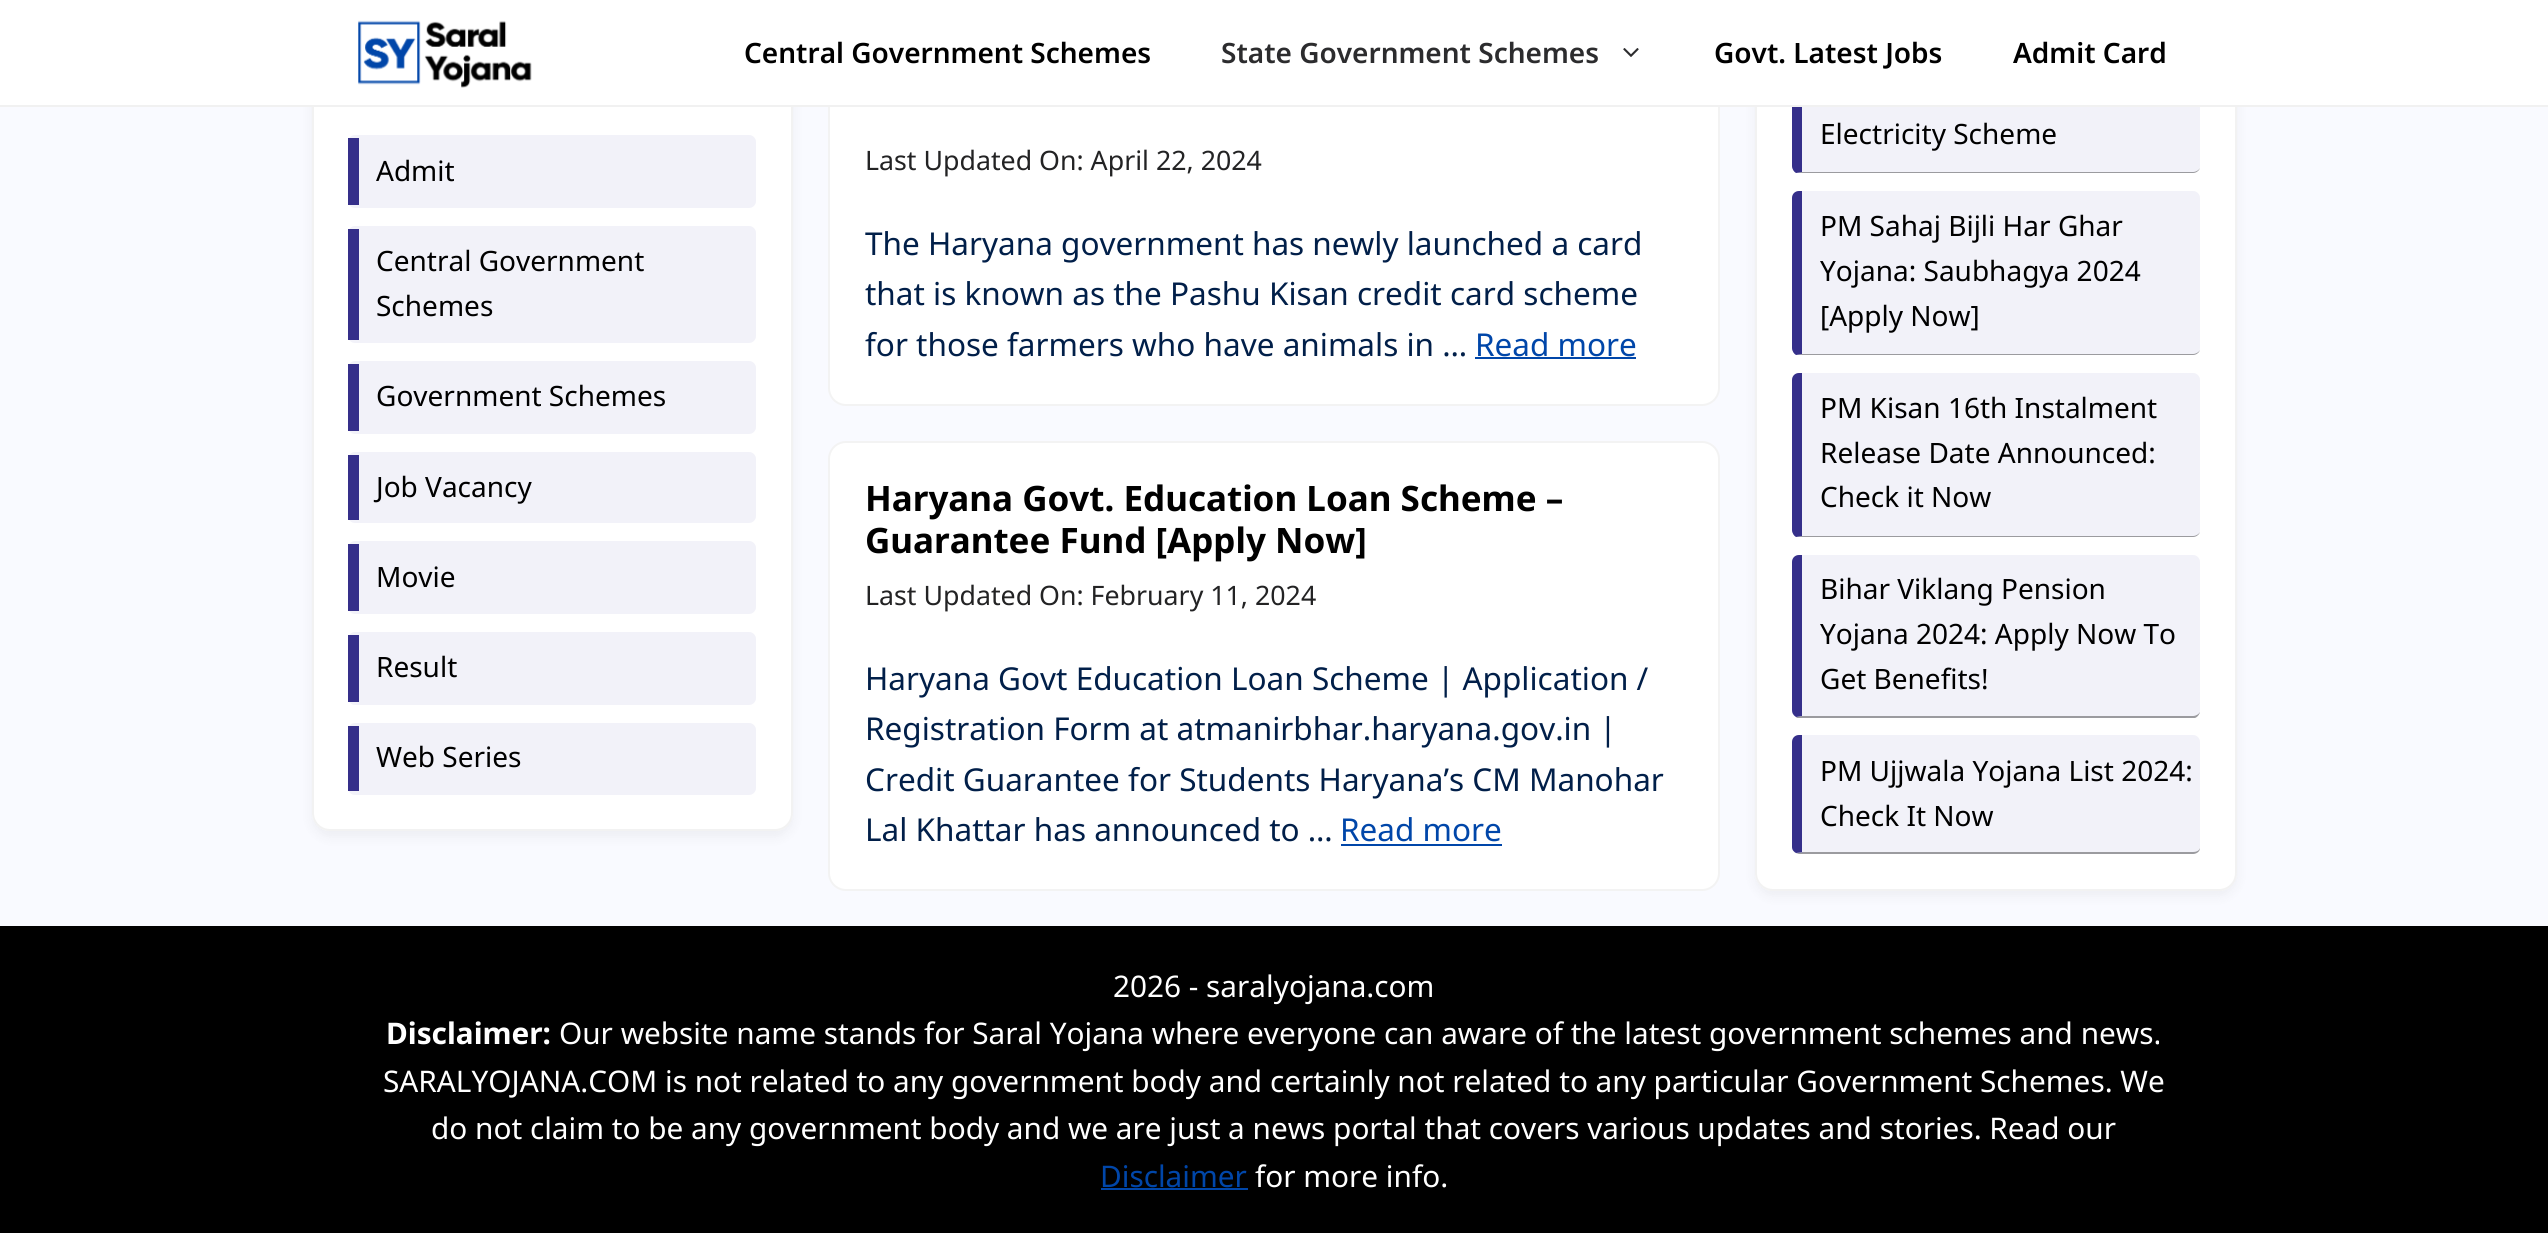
import math
import cairo


def round_path(ctx, x, y, w, h, r):
	ctx.new_sub_path()
	for i, (u, v) in enumerate([(x + w - r, y + h - r), (x + r, y + h - r), (x + r, y + r), (x + w - r, y + r)]):
		ctx.arc(u, v, r, i * math.pi / 2, (i + 1) * math.pi / 2)
	ctx.close_path()

def blur_box(ctx, x, y, w, h, r, blur, alpha):
	ctx.push_group_with_content(cairo.CONTENT_ALPHA)
	ctx.set_operator(cairo.OPERATOR_SOURCE)
	for i in range(15, -16, -2):
		e = blur * i / 6
		if min(w, h) + 2 * e > 0:
			ctx.set_source_rgba(0, 0, 0, alpha * math.erfc((i - 1) / 8.5) / 2)
			round_path(ctx, x - e, y - e, w + 2 * e, h + 2 * e, max(0, min(r + e + blur * .6, min(w, h) / 2 + e)))
			ctx.fill()
	ctx.mask(ctx.pop_group())

def paste(ctx, path, x, y, w, h):
	ctx.save()
	ctx.set_source_surface(cairo.ImageSurface.create_from_png(path), x, y)
	ctx.rectangle(x, y, w, h)
	ctx.fill()
	ctx.restore()

def draw(ctx):
	ctx.set_source_rgb(0.976, 0.98, 1)
	ctx.paint()
	ctx.set_source_rgb(0, 0, 0)
	blur_box(ctx, 312, 23, 481, 814, 18, 6, 0.05)
	ctx.set_source_rgb(1, 1, 1)
	round_path(ctx, 312, 18, 481, 813, 18)
	ctx.fill()
	round_path(ctx, 313, 19, 479, 811, 17)
	ctx.set_source_rgba(0.906, 0.906, 0.906, 0.5)
	ctx.stroke()
	ctx.set_source_rgb(1, 1, 1)
	round_path(ctx, 829, 8, 890, 397, 17)
	ctx.fill_preserve()
	ctx.set_source_rgb(0.953, 0.953, 0.953)
	ctx.stroke()
	ctx.set_source_rgb(0, 0, 0)
	blur_box(ctx, 1755, -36, 482, 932, 18, 6, 0.05)
	ctx.set_source_rgb(1, 1, 1)
	round_path(ctx, 1755, -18, 482, 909, 18)
	ctx.fill()
	round_path(ctx, 1756, -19, 480, 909, 17)
	ctx.set_source_rgba(0.906, 0.906, 0.906, 0.5)
	ctx.stroke()
	ctx.set_source_rgb(0.949, 0.949, 0.973)
	round_path(ctx, 1792, 9, 408, 164, 7)
	ctx.fill()
	ctx.set_source_rgba(0.176, 0.176, 0.176, 0.44)
	ctx.new_path()
	ctx.move_to(2200, 168)
	ctx.curve_to(2199, 171, 2196, 173, 2193, 173)
	ctx.line_to(1799, 173)
	ctx.line_to(1796, 173)
	ctx.line_to(1802, 172)
	ctx.line_to(2193, 172)
	ctx.curve_to(2196, 172, 2199, 170, 2200, 168)
	ctx.close_path()
	ctx.fill()
	ctx.set_source_rgb(0.208, 0.184, 0.541)
	ctx.new_path()
	ctx.move_to(1799, 9)
	ctx.line_to(1802, 9)
	ctx.line_to(1802, 172)
	ctx.line_to(1796, 173)
	ctx.curve_to(1794, 172, 1792, 169, 1792, 166)
	ctx.line_to(1792, 16)
	ctx.curve_to(1792, 12, 1795, 9, 1799, 9)
	ctx.close_path()
	ctx.fill()
	ctx.set_source_rgb(1, 1, 1)
	ctx.rectangle(0, 0, 2548, 105)
	ctx.fill()
	ctx.set_source_rgb(0.945, 0.945, 0.945)
	ctx.rectangle(0, 105, 2548, 2)
	ctx.fill()
	paste(ctx, 'media/1.png', 358, 20, 174, 68)
	ctx.select_font_face('Noto Sans SemiBold')
	ctx.set_font_size(28)
	ctx.set_source_rgb(0, 0, 0)
	ctx.move_to(744, 63)
	ctx.show_text('Central Government Schemes')
	ctx.set_source_rgb(0.173, 0.173, 0.18)
	ctx.move_to(1221, 63)
	ctx.show_text('State Government Schemes')
	paste(ctx, 'media/2.png', 1623, 48, 16, 9)
	ctx.set_source_rgb(0, 0, 0)
	ctx.move_to(1714, 63)
	ctx.show_text('Govt. Latest Jobs')
	ctx.move_to(2013, 63)
	ctx.show_text('Admit Card')
	ctx.set_source_rgb(0.949, 0.949, 0.973)
	round_path(ctx, 348, 135, 408, 73, 7)
	ctx.fill()
	ctx.set_source_rgb(0.208, 0.184, 0.541)
	ctx.rectangle(348, 138, 11, 67)
	ctx.fill()
	ctx.select_font_face('Noto Sans')
	ctx.set_source_rgb(0, 0, 0)
	ctx.move_to(376, 181)
	ctx.show_text('Admit')
	ctx.set_source_rgb(0.949, 0.949, 0.973)
	round_path(ctx, 348, 226, 408, 117, 7)
	ctx.fill()
	ctx.set_source_rgb(0.208, 0.184, 0.541)
	ctx.rectangle(348, 229, 11, 111)
	ctx.fill()
	ctx.set_source_rgb(0, 0, 0)
	ctx.move_to(376, 271)
	ctx.show_text('Central Government')
	ctx.move_to(376, 316)
	ctx.show_text('Schemes')
	ctx.set_source_rgb(0.949, 0.949, 0.973)
	round_path(ctx, 348, 361, 408, 73, 7)
	ctx.fill()
	ctx.set_source_rgb(0.208, 0.184, 0.541)
	ctx.rectangle(348, 364, 11, 67)
	ctx.fill()
	ctx.set_source_rgb(0, 0, 0)
	ctx.move_to(376, 406)
	ctx.show_text('Government Schemes')
	ctx.set_source_rgb(0.949, 0.949, 0.973)
	round_path(ctx, 348, 452, 408, 71, 7)
	ctx.fill()
	ctx.set_source_rgb(0.208, 0.184, 0.541)
	ctx.rectangle(348, 455, 11, 65)
	ctx.fill()
	ctx.set_source_rgb(0, 0, 0)
	ctx.move_to(376, 497)
	ctx.show_text('Job Vacancy')
	ctx.set_source_rgb(0.949, 0.949, 0.973)
	round_path(ctx, 348, 541, 408, 73, 7)
	ctx.fill()
	ctx.set_source_rgb(0.208, 0.184, 0.541)
	ctx.rectangle(348, 544, 11, 67)
	ctx.fill()
	ctx.set_source_rgb(0, 0, 0)
	ctx.move_to(376, 587)
	ctx.show_text('Movie')
	ctx.set_source_rgb(0.949, 0.949, 0.973)
	round_path(ctx, 348, 632, 408, 73, 7)
	ctx.fill()
	ctx.set_source_rgb(0.208, 0.184, 0.541)
	ctx.rectangle(348, 635, 11, 67)
	ctx.fill()
	ctx.set_source_rgb(0, 0, 0)
	ctx.move_to(376, 677)
	ctx.show_text('Result')
	ctx.set_source_rgb(0.949, 0.949, 0.973)
	round_path(ctx, 348, 723, 408, 72, 7)
	ctx.fill()
	ctx.set_source_rgb(0.208, 0.184, 0.541)
	ctx.rectangle(348, 726, 11, 65)
	ctx.fill()
	ctx.set_source_rgb(0, 0, 0)
	ctx.move_to(376, 767)
	ctx.show_text('Web Series')
	ctx.set_font_size(26.75)
	ctx.set_source_rgb(0.137, 0.137, 0.141)
	ctx.move_to(865, 170)
	ctx.show_text('Last Updated On: April 22, 2024')
	ctx.set_font_size(31.5)
	ctx.set_source_rgb(0.004, 0.122, 0.286)
	for x, y, s in [
		(865, 255, 'The Haryana government has newly launched a card'),
		(865, 305, 'that is known as the Pashu Kisan credit card scheme'),
		(865, 356, 'for those farmers who have animals in …'),
	]:
		ctx.move_to(x, y)
		ctx.show_text(s)
	ctx.set_source_rgb(0, 0.275, 0.663)
	ctx.move_to(1475, 356)
	ctx.show_text('Read more')
	ctx.rectangle(1475, 357, 161, 2)
	ctx.fill()
	ctx.set_source_rgb(1, 1, 1)
	round_path(ctx, 829, 442, 890, 448, 17)
	ctx.fill_preserve()
	ctx.set_source_rgb(0.953, 0.953, 0.953)
	ctx.stroke()
	ctx.select_font_face('Noto Sans', cairo.FONT_SLANT_NORMAL, cairo.FONT_WEIGHT_BOLD)
	ctx.set_font_size(35)
	ctx.set_source_rgb(0, 0, 0)
	ctx.move_to(865, 511)
	ctx.show_text('Haryana Govt. Education Loan Scheme –')
	ctx.move_to(865, 553)
	ctx.show_text('Guarantee Fund [Apply Now]')
	ctx.select_font_face('Noto Sans')
	ctx.set_font_size(26.75)
	ctx.set_source_rgb(0.137, 0.137, 0.141)
	ctx.move_to(865, 605)
	ctx.show_text('Last Updated On: February 11, 2024')
	ctx.set_font_size(31.5)
	ctx.set_source_rgb(0.004, 0.122, 0.286)
	for x, y, s in [
		(865, 690, 'Haryana Govt Education Loan Scheme | Application /'),
		(865, 740, 'Registration Form at atmanirbhar.haryana.gov.in |'),
		(865, 791, 'Credit Guarantee for Students Haryana’s CM Manohar'),
		(865, 841, 'Lal Khattar has announced to …'),
	]:
		ctx.move_to(x, y)
		ctx.show_text(s)
	ctx.set_source_rgb(0, 0.275, 0.663)
	ctx.move_to(1340, 841)
	ctx.show_text('Read more')
	ctx.rectangle(1341, 844, 161, 2)
	ctx.fill()
	ctx.set_font_size(28)
	ctx.set_source_rgb(0, 0, 0)
	ctx.move_to(1820, 144)
	ctx.show_text('Electricity Scheme')
	ctx.set_source_rgb(0.949, 0.949, 0.973)
	round_path(ctx, 1792, 191, 408, 164, 7)
	ctx.fill()
	ctx.set_source_rgba(0.176, 0.176, 0.176, 0.44)
	ctx.new_path()
	ctx.move_to(2200, 350)
	ctx.curve_to(2199, 353, 2196, 355, 2193, 355)
	ctx.line_to(1799, 355)
	ctx.line_to(1796, 355)
	ctx.line_to(1802, 354)
	ctx.line_to(2193, 354)
	ctx.curve_to(2196, 354, 2199, 352, 2200, 350)
	ctx.close_path()
	ctx.fill()
	ctx.set_source_rgb(0.208, 0.184, 0.541)
	ctx.new_path()
	ctx.move_to(1799, 191)
	ctx.line_to(1802, 191)
	ctx.line_to(1802, 354)
	ctx.line_to(1796, 355)
	ctx.curve_to(1794, 354, 1792, 351, 1792, 348)
	ctx.line_to(1792, 198)
	ctx.curve_to(1792, 194, 1795, 191, 1799, 191)
	ctx.close_path()
	ctx.fill()
	ctx.set_source_rgb(0, 0, 0)
	for x, y, s in [
		(1820, 236, 'PM Sahaj Bijli Har Ghar'),
		(1820, 281, 'Yojana: Saubhagya 2024'),
		(1820, 326, '[Apply Now]'),
	]:
		ctx.move_to(x, y)
		ctx.show_text(s)
	ctx.set_source_rgb(0.949, 0.949, 0.973)
	round_path(ctx, 1792, 373, 408, 164, 7)
	ctx.fill()
	ctx.set_source_rgba(0.176, 0.176, 0.176, 0.44)
	ctx.new_path()
	ctx.move_to(2200, 532)
	ctx.curve_to(2199, 535, 2196, 537, 2193, 537)
	ctx.line_to(1799, 537)
	ctx.line_to(1796, 537)
	ctx.line_to(1802, 536)
	ctx.line_to(2193, 536)
	ctx.curve_to(2196, 536, 2199, 534, 2200, 532)
	ctx.close_path()
	ctx.fill()
	ctx.set_source_rgb(0.208, 0.184, 0.541)
	ctx.new_path()
	ctx.move_to(1799, 373)
	ctx.line_to(1802, 373)
	ctx.line_to(1802, 536)
	ctx.line_to(1796, 537)
	ctx.curve_to(1794, 536, 1792, 533, 1792, 530)
	ctx.line_to(1792, 380)
	ctx.curve_to(1792, 376, 1795, 373, 1799, 373)
	ctx.close_path()
	ctx.fill()
	ctx.set_source_rgb(0, 0, 0)
	for x, y, s in [
		(1820, 418, 'PM Kisan 16th Instalment'),
		(1820, 463, 'Release Date Announced:'),
		(1820, 507, 'Check it Now'),
	]:
		ctx.move_to(x, y)
		ctx.show_text(s)
	ctx.set_source_rgb(0.949, 0.949, 0.973)
	round_path(ctx, 1792, 555, 408, 163, 7)
	ctx.fill()
	ctx.set_source_rgba(0.176, 0.176, 0.176, 0.44)
	ctx.new_path()
	ctx.move_to(1797, 718)
	ctx.line_to(1796, 717)
	ctx.line_to(1802, 716)
	ctx.line_to(2193, 716)
	ctx.curve_to(2196, 716, 2199, 714, 2200, 712)
	ctx.curve_to(2200, 713, 2198, 717, 2195, 718)
	ctx.close_path()
	ctx.fill()
	ctx.set_source_rgb(0.208, 0.184, 0.541)
	ctx.new_path()
	ctx.move_to(1799, 555)
	ctx.line_to(1802, 555)
	ctx.line_to(1802, 716)
	ctx.line_to(1796, 717)
	ctx.curve_to(1793, 715, 1792, 713, 1792, 710)
	ctx.line_to(1792, 562)
	ctx.curve_to(1792, 558, 1795, 555, 1799, 555)
	ctx.close_path()
	ctx.fill()
	ctx.set_source_rgb(0, 0, 0)
	for x, y, s in [
		(1820, 599, 'Bihar Viklang Pension'),
		(1820, 644, 'Yojana 2024: Apply Now To'),
		(1820, 689, 'Get Benefits!'),
	]:
		ctx.move_to(x, y)
		ctx.show_text(s)
	ctx.set_source_rgb(0.949, 0.949, 0.973)
	round_path(ctx, 1792, 735, 408, 119, 7)
	ctx.fill()
	ctx.set_source_rgba(0.176, 0.176, 0.176, 0.44)
	ctx.new_path()
	ctx.move_to(1799, 854)
	ctx.line_to(2193, 854)
	ctx.curve_to(2196, 854, 2200, 852, 2200, 848)
	ctx.curve_to(2199, 851, 2196, 852, 2193, 852)
	ctx.line_to(1804, 852)
	ctx.line_to(1796, 853)
	ctx.close_path()
	ctx.fill()
	ctx.set_source_rgb(0.208, 0.184, 0.541)
	ctx.new_path()
	ctx.move_to(1799, 735)
	ctx.line_to(1802, 735)
	ctx.line_to(1802, 852)
	ctx.line_to(1804, 852)
	ctx.line_to(1796, 853)
	ctx.curve_to(1794, 852, 1792, 850, 1792, 847)
	ctx.line_to(1792, 742)
	ctx.curve_to(1792, 738, 1795, 735, 1799, 735)
	ctx.close_path()
	ctx.fill()
	ctx.set_source_rgb(0, 0, 0)
	ctx.move_to(1820, 781)
	ctx.show_text('PM Ujjwala Yojana List 2024:')
	ctx.move_to(1820, 826)
	ctx.show_text('Check It Now')
	ctx.rectangle(0, 926, 2548, 307)
	ctx.fill()
	ctx.set_font_size(29.75)
	ctx.set_source_rgb(1, 1, 1)
	ctx.move_to(1113, 997)
	ctx.show_text('2026 - saralyojana.com')
	ctx.select_font_face('Noto Sans', cairo.FONT_SLANT_NORMAL, cairo.FONT_WEIGHT_BOLD)
	ctx.move_to(386, 1044)
	ctx.show_text('Disclaimer:')
	ctx.select_font_face('Noto Sans')
	for x, y, s in [
		(559, 1044, 'Our website name stands for Saral Yojana where everyone can aware of the latest government schemes and news.'),
		(383, 1092, 'SARALYOJANA.COM is not related to any government body and certainly not related to any particular Government Schemes. We'),
		(431, 1139, 'do not claim to be any government body and we are just a news portal that covers various updates and stories. Read our'),
	]:
		ctx.move_to(x, y)
		ctx.show_text(s)
	ctx.set_source_rgb(0, 0.275, 0.663)
	ctx.move_to(1100, 1187)
	ctx.show_text('Disclaimer')
	ctx.rectangle(1101, 1188, 147, 2)
	ctx.fill()
	ctx.set_source_rgb(1, 1, 1)
	ctx.move_to(1255, 1187)
	ctx.show_text('for more info.')


surface = cairo.ImageSurface(cairo.FORMAT_RGB24, 2548, 1233)
ctx = cairo.Context(surface)
options = cairo.FontOptions()
options.set_hint_metrics(cairo.HINT_METRICS_OFF)
options.set_hint_style(cairo.HINT_STYLE_NONE)
ctx.set_font_options(options)
ctx.set_miter_limit(4)
draw(ctx)
surface.write_to_png('image.png')
